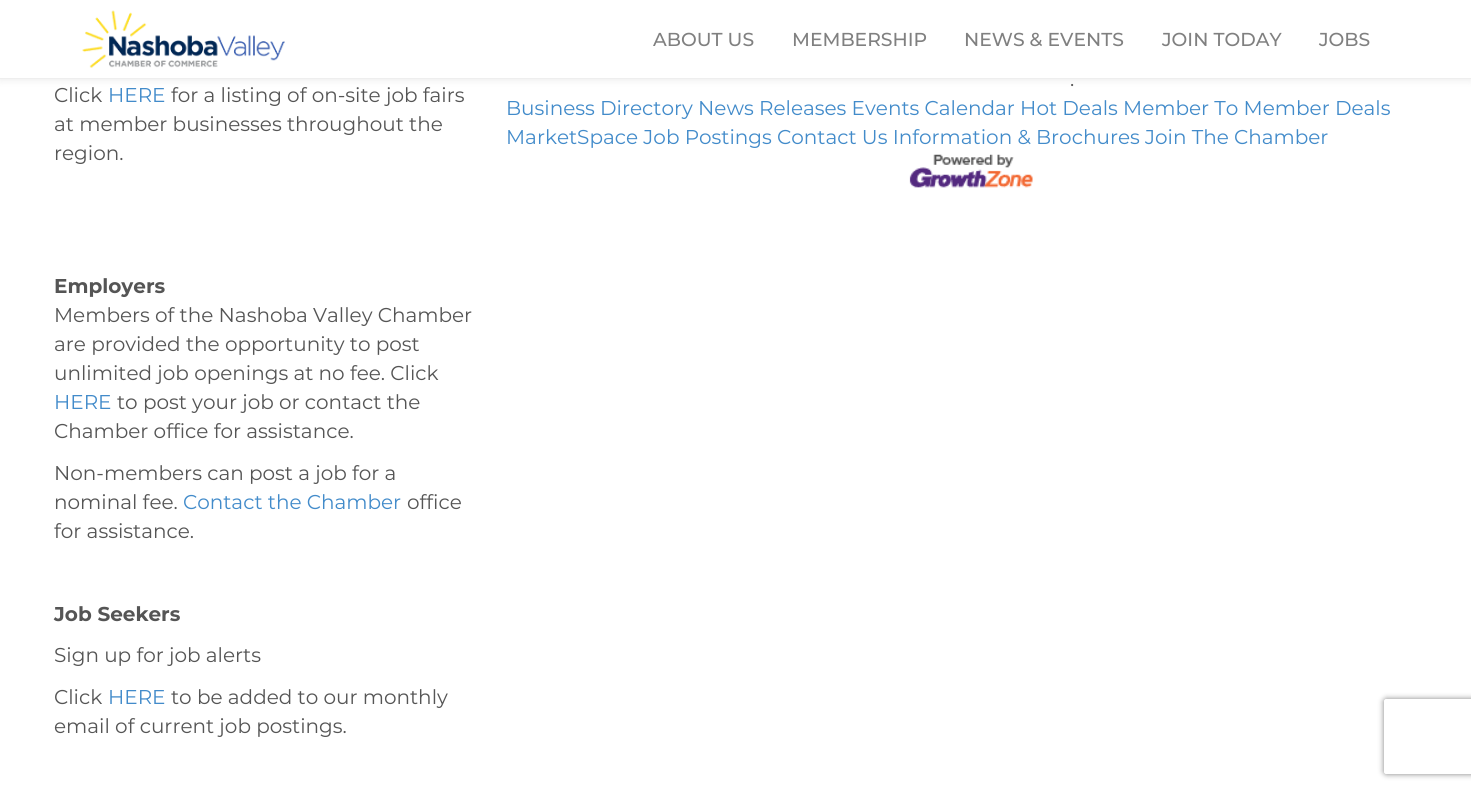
import math
import cairo


def round_path(ctx, x, y, w, h, r):
	ctx.new_sub_path()
	for i, (u, v) in enumerate([(x + w - r, y + h - r), (x + r, y + h - r), (x + r, y + r), (x + w - r, y + r)]):
		ctx.arc(u, v, r, i * math.pi / 2, (i + 1) * math.pi / 2)
	ctx.close_path()

def blur_box(ctx, x, y, w, h, r, blur, alpha):
	ctx.push_group_with_content(cairo.CONTENT_ALPHA)
	ctx.set_operator(cairo.OPERATOR_SOURCE)
	for i in range(15, -16, -2):
		e = blur * i / 6
		if min(w, h) + 2 * e > 0:
			ctx.set_source_rgba(0, 0, 0, alpha * math.erfc((i - 1) / 8.5) / 2)
			round_path(ctx, x - e, y - e, w + 2 * e, h + 2 * e, max(0, min(r + e + blur * .6, min(w, h) / 2 + e)))
			ctx.fill()
	ctx.mask(ctx.pop_group())

def paste(ctx, path, x, y, w, h):
	ctx.save()
	ctx.set_source_surface(cairo.ImageSurface.create_from_png(path), x, y)
	ctx.rectangle(x, y, w, h)
	ctx.fill()
	ctx.restore()

def draw(ctx):
	ctx.set_source_rgb(1, 1, 1)
	ctx.paint()
	ctx.set_source_rgb(0, 0, 0)
	blur_box(ctx, 0, 0, 1471, 79, 0, 4.5, 0.1)
	ctx.set_source_rgb(1, 1, 1)
	ctx.rectangle(0, 0, 1471, 78)
	ctx.fill()
	ctx.set_source_rgb(0.933, 0.933, 0.933)
	ctx.rectangle(0, 78, 1471, 1)
	ctx.fill()
	paste(ctx, 'media/1.png', 82, 10, 203, 58)
	ctx.select_font_face('Montserrat Medium')
	ctx.set_font_size(18.75)
	ctx.set_source_rgb(0.502, 0.502, 0.502)
	for x, y, s in [
		(653, 46, 'ABOUT US'),
		(792, 46, 'MEMBERSHIP'),
		(964, 46, 'NEWS & EVENTS'),
		(1162, 46, 'JOIN TODAY'),
		(1319, 46, 'JOBS'),
	]:
		ctx.move_to(x, y)
		ctx.show_text(s)
	ctx.select_font_face('Montserrat')
	ctx.set_font_size(20)
	ctx.set_source_rgb(0.333, 0.333, 0.333)
	ctx.move_to(54, 102)
	ctx.show_text('Click')
	ctx.set_source_rgb(0.259, 0.545, 0.792)
	ctx.move_to(108, 102)
	ctx.show_text('HERE')
	ctx.set_source_rgb(0.333, 0.333, 0.333)
	for x, y, s in [
		(171, 102, 'for a listing of on-site job fairs'),
		(54, 131, 'at member businesses throughout the'),
		(54, 160, 'region.'),
	]:
		ctx.move_to(x, y)
		ctx.show_text(s)
	ctx.select_font_face('Montserrat', cairo.FONT_SLANT_NORMAL, cairo.FONT_WEIGHT_BOLD)
	ctx.move_to(54, 293)
	ctx.show_text('Employers')
	ctx.select_font_face('Montserrat')
	for x, y, s in [
		(54, 322, 'Members of the Nashoba Valley Chamber'),
		(54, 351, 'are provided the opportunity to post'),
		(54, 380, 'unlimited job openings at no fee. Click'),
	]:
		ctx.move_to(x, y)
		ctx.show_text(s)
	ctx.set_source_rgb(0.259, 0.545, 0.792)
	ctx.move_to(54, 409)
	ctx.show_text('HERE')
	ctx.set_source_rgb(0.333, 0.333, 0.333)
	for x, y, s in [
		(117, 409, 'to post your job or contact the'),
		(54, 438, 'Chamber office for assistance.'),
		(54, 480, 'Non-members can post a job for a'),
		(54, 509, 'nominal fee.'),
	]:
		ctx.move_to(x, y)
		ctx.show_text(s)
	ctx.set_source_rgb(0.259, 0.545, 0.792)
	ctx.move_to(183, 509)
	ctx.show_text('Contact the Chamber')
	ctx.set_source_rgb(0.333, 0.333, 0.333)
	ctx.move_to(407, 509)
	ctx.show_text('office')
	ctx.move_to(54, 538)
	ctx.show_text('for assistance.')
	ctx.select_font_face('Montserrat', cairo.FONT_SLANT_NORMAL, cairo.FONT_WEIGHT_BOLD)
	ctx.move_to(54, 621)
	ctx.show_text('Job Seekers')
	ctx.select_font_face('Montserrat')
	ctx.move_to(54, 662)
	ctx.show_text('Sign up for job alerts')
	ctx.move_to(54, 704)
	ctx.show_text('Click')
	ctx.set_source_rgb(0.259, 0.545, 0.792)
	ctx.move_to(108, 704)
	ctx.show_text('HERE')
	ctx.set_source_rgb(0.333, 0.333, 0.333)
	for x, y, s in [
		(171, 704, 'to be added to our monthly'),
		(54, 733, 'email of current job postings.'),
		(1070, 86, '.'),
	]:
		ctx.move_to(x, y)
		ctx.show_text(s)
	ctx.set_source_rgb(0.259, 0.545, 0.792)
	ctx.move_to(506, 115)
	ctx.show_text('Business Directory News Releases Events Calendar Hot Deals Member To Member Deals')
	ctx.move_to(506, 144)
	ctx.show_text('MarketSpace Job Postings Contact Us Information & Brochures Join The Chamber')
	paste(ctx, 'media/2.png', 909, 154, 124, 34)
	ctx.save()
	ctx.set_fill_rule(cairo.FILL_RULE_EVEN_ODD)
	ctx.new_path()
	ctx.move_to(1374, 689)
	ctx.line_to(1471, 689)
	ctx.line_to(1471, 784)
	ctx.line_to(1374, 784)
	ctx.close_path()
	ctx.move_to(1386.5, 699)
	ctx.line_to(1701.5, 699)
	ctx.curve_to(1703, 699, 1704, 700, 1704, 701.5)
	ctx.line_to(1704, 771.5)
	ctx.curve_to(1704, 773, 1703, 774, 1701.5, 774)
	ctx.line_to(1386.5, 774)
	ctx.curve_to(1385, 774, 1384, 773, 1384, 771.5)
	ctx.line_to(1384, 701.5)
	ctx.curve_to(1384, 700, 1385, 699, 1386.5, 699)
	ctx.close_path()
	ctx.clip()
	ctx.set_source_rgb(0.502, 0.502, 0.502)
	blur_box(ctx, 1384, 699, 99, 75, 2.5, 3, 1)
	ctx.restore()


surface = cairo.ImageSurface(cairo.FORMAT_RGB24, 1471, 791)
ctx = cairo.Context(surface)
options = cairo.FontOptions()
options.set_hint_metrics(cairo.HINT_METRICS_OFF)
options.set_hint_style(cairo.HINT_STYLE_NONE)
ctx.set_font_options(options)
ctx.set_miter_limit(4)
draw(ctx)
surface.write_to_png('image.png')
